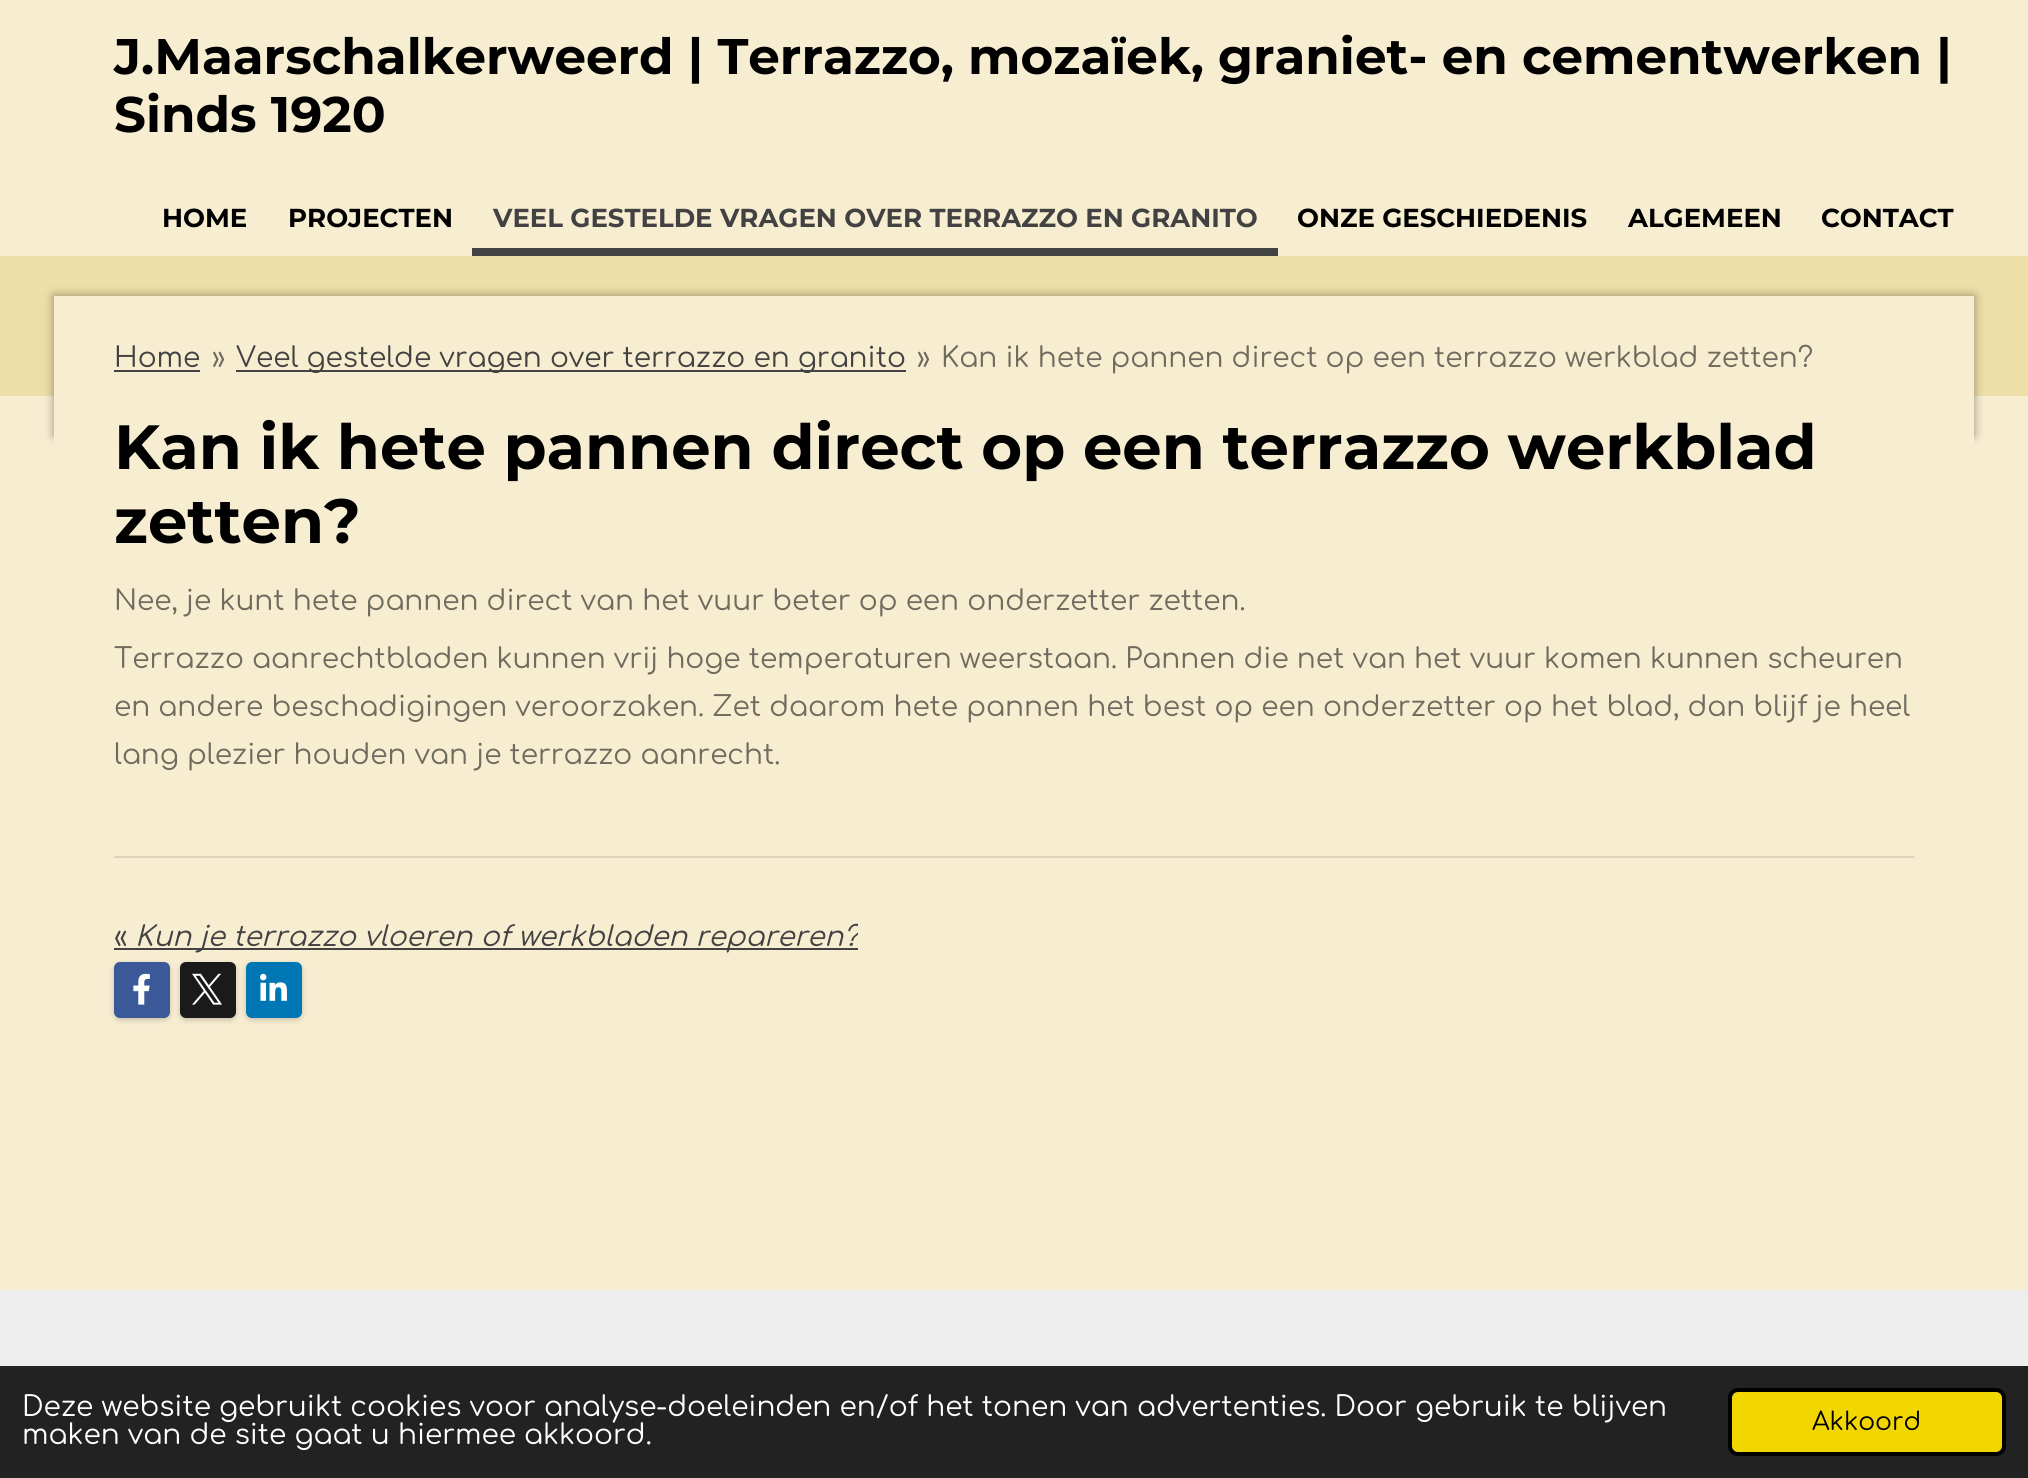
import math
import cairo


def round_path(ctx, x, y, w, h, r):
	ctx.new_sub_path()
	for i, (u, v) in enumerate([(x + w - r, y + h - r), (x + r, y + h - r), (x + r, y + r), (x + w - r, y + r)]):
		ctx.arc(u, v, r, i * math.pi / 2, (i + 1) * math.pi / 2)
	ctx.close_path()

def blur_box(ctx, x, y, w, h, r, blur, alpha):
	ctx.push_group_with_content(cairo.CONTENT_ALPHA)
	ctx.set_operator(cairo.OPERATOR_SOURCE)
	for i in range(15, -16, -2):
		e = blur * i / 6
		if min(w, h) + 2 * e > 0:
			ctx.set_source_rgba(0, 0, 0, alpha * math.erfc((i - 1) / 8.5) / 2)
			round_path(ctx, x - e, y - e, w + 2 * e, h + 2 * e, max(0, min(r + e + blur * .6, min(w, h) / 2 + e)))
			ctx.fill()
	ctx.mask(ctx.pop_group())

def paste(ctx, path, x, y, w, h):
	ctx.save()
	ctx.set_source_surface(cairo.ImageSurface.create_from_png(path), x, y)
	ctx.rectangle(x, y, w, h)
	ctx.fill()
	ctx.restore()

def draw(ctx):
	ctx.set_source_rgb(0.965, 0.933, 0.824)
	ctx.paint()
	ctx.select_font_face('Montserrat', cairo.FONT_SLANT_NORMAL, cairo.FONT_WEIGHT_BOLD)
	ctx.set_font_size(50)
	ctx.set_source_rgb(0, 0, 0)
	ctx.move_to(114, 74)
	ctx.show_text('J.Maarschalkerweerd | Terrazzo, mozaïek, graniet- en cementwerken |')
	ctx.move_to(114, 132)
	ctx.show_text('Sinds 1920')
	ctx.set_font_size(26)
	ctx.move_to(162, 227)
	ctx.show_text('HOME')
	ctx.move_to(288, 227)
	ctx.show_text('PROJECTEN')
	ctx.set_source_rgb(0.259, 0.259, 0.259)
	ctx.rectangle(472, 248, 806, 8)
	ctx.fill()
	ctx.move_to(493, 227)
	ctx.show_text('VEEL GESTELDE VRAGEN OVER TERRAZZO EN GRANITO')
	ctx.set_source_rgb(0, 0, 0)
	for x, y, s in [
		(1297, 227, 'ONZE GESCHIEDENIS'),
		(1628, 227, 'ALGEMEEN'),
		(1821, 227, 'CONTACT'),
	]:
		ctx.move_to(x, y)
		ctx.show_text(s)
	ctx.set_source_rgb(0.933, 0.871, 0.655)
	ctx.rectangle(0, 256, 2028, 140)
	ctx.fill()
	ctx.set_source_rgb(0, 0, 0)
	blur_box(ctx, 54, 296, 1920, 140, 0, 5, 0.4)
	ctx.set_source_rgb(0.965, 0.933, 0.824)
	ctx.rectangle(54, 296, 1920, 150)
	ctx.fill()
	ctx.select_font_face('Comfortaa')
	ctx.set_font_size(28)
	ctx.set_source_rgb(0.259, 0.259, 0.259)
	ctx.move_to(114, 367)
	ctx.show_text('Home')
	ctx.rectangle(114, 370, 86, 2)
	ctx.fill()
	ctx.set_source_rgb(0.435, 0.42, 0.369)
	ctx.move_to(212, 367)
	ctx.show_text('»')
	ctx.set_source_rgb(0.259, 0.259, 0.259)
	ctx.rectangle(236, 370, 670, 2)
	ctx.fill()
	ctx.move_to(236, 367)
	ctx.show_text('Veel gestelde vragen over terrazzo en granito')
	ctx.set_source_rgb(0.435, 0.42, 0.369)
	ctx.move_to(917, 367)
	ctx.show_text('»')
	ctx.move_to(941, 367)
	ctx.show_text('Kan ik hete pannen direct op een terrazzo werkblad zetten?')
	ctx.select_font_face('Montserrat', cairo.FONT_SLANT_NORMAL, cairo.FONT_WEIGHT_BOLD)
	ctx.set_font_size(62.4)
	ctx.set_source_rgb(0, 0, 0)
	ctx.move_to(114, 469)
	ctx.show_text('Kan ik hete pannen direct op een terrazzo werkblad')
	ctx.move_to(114, 543)
	ctx.show_text('zetten?')
	ctx.select_font_face('Comfortaa')
	ctx.set_font_size(28)
	ctx.set_source_rgb(0.435, 0.42, 0.369)
	for x, y, s in [
		(114, 610, 'Nee, je kunt hete pannen direct van het vuur beter op een onderzetter zetten.'),
		(114, 668, 'Terrazzo aanrechtbladen kunnen vrij hoge temperaturen weerstaan. Pannen die net van het vuur komen kunnen scheuren'),
		(114, 716, 'en andere beschadigingen veroorzaken. Zet daarom hete pannen het best op een onderzetter op het blad, dan blijf je heel'),
		(114, 764, 'lang plezier houden van je terrazzo aanrecht.'),
	]:
		ctx.move_to(x, y)
		ctx.show_text(s)
	ctx.set_source_rgb(0.859, 0.831, 0.733)
	ctx.rectangle(114, 856, 1800, 2)
	ctx.fill()
	ctx.set_source_rgb(0.259, 0.259, 0.259)
	ctx.move_to(114, 946)
	ctx.show_text('«')
	ctx.rectangle(114, 948, 744, 2)
	ctx.fill()
	ctx.save()
	ctx.rectangle(136, 914, 722, 48)
	ctx.clip()
	ctx.select_font_face('Comfortaa', cairo.FONT_SLANT_ITALIC)
	ctx.move_to(135, 946)
	ctx.show_text('Kun je terrazzo vloeren of werkbladen repareren?')
	ctx.restore()
	ctx.set_source_rgb(0, 0, 0)
	blur_box(ctx, 114, 964, 56, 56, 6, 3, 0.2)
	ctx.set_source_rgb(0.231, 0.349, 0.596)
	round_path(ctx, 114, 962, 56, 56, 6)
	ctx.fill()
	paste(ctx, 'media/1.png', 133, 973, 17, 32)
	ctx.set_source_rgb(0, 0, 0)
	blur_box(ctx, 180, 964, 56, 56, 6, 3, 0.2)
	ctx.set_source_rgb(0.102, 0.102, 0.102)
	round_path(ctx, 180, 962, 56, 56, 6)
	ctx.fill()
	paste(ctx, 'media/2.png', 192, 973, 30, 32)
	ctx.set_source_rgb(0, 0, 0)
	blur_box(ctx, 246, 964, 56, 56, 6, 3, 0.2)
	ctx.set_source_rgb(0, 0.467, 0.71)
	round_path(ctx, 246, 962, 56, 56, 6)
	ctx.fill()
	paste(ctx, 'media/3.png', 260, 973, 27, 28)
	ctx.set_source_rgb(0.933, 0.933, 0.933)
	ctx.rectangle(0, 1290, 2028, 76)
	ctx.fill()
	ctx.set_source_rgb(0.133, 0.133, 0.133)
	ctx.rectangle(0, 1366, 2028, 112)
	ctx.fill()
	ctx.set_source_rgb(1, 1, 1)
	ctx.move_to(22, 1416)
	ctx.show_text('Deze website gebruikt cookies voor analyse-doeleinden en/of het tonen van advertenties. Door gebruik te blijven')
	ctx.move_to(22, 1444)
	ctx.show_text('maken van de site gaat u hiermee akkoord.')
	ctx.set_source_rgb(0.945, 0.839, 0)
	round_path(ctx, 1730, 1390, 274, 64, 8)
	ctx.fill_preserve()
	ctx.set_source_rgb(0, 0, 0)
	ctx.set_line_width(4)
	ctx.stroke()
	ctx.set_font_size(25)
	ctx.move_to(1812, 1430)
	ctx.show_text('Akkoord')


surface = cairo.ImageSurface(cairo.FORMAT_RGB24, 2028, 1478)
ctx = cairo.Context(surface)
options = cairo.FontOptions()
options.set_hint_metrics(cairo.HINT_METRICS_OFF)
options.set_hint_style(cairo.HINT_STYLE_NONE)
ctx.set_font_options(options)
ctx.set_miter_limit(4)
draw(ctx)
surface.write_to_png('image.png')
